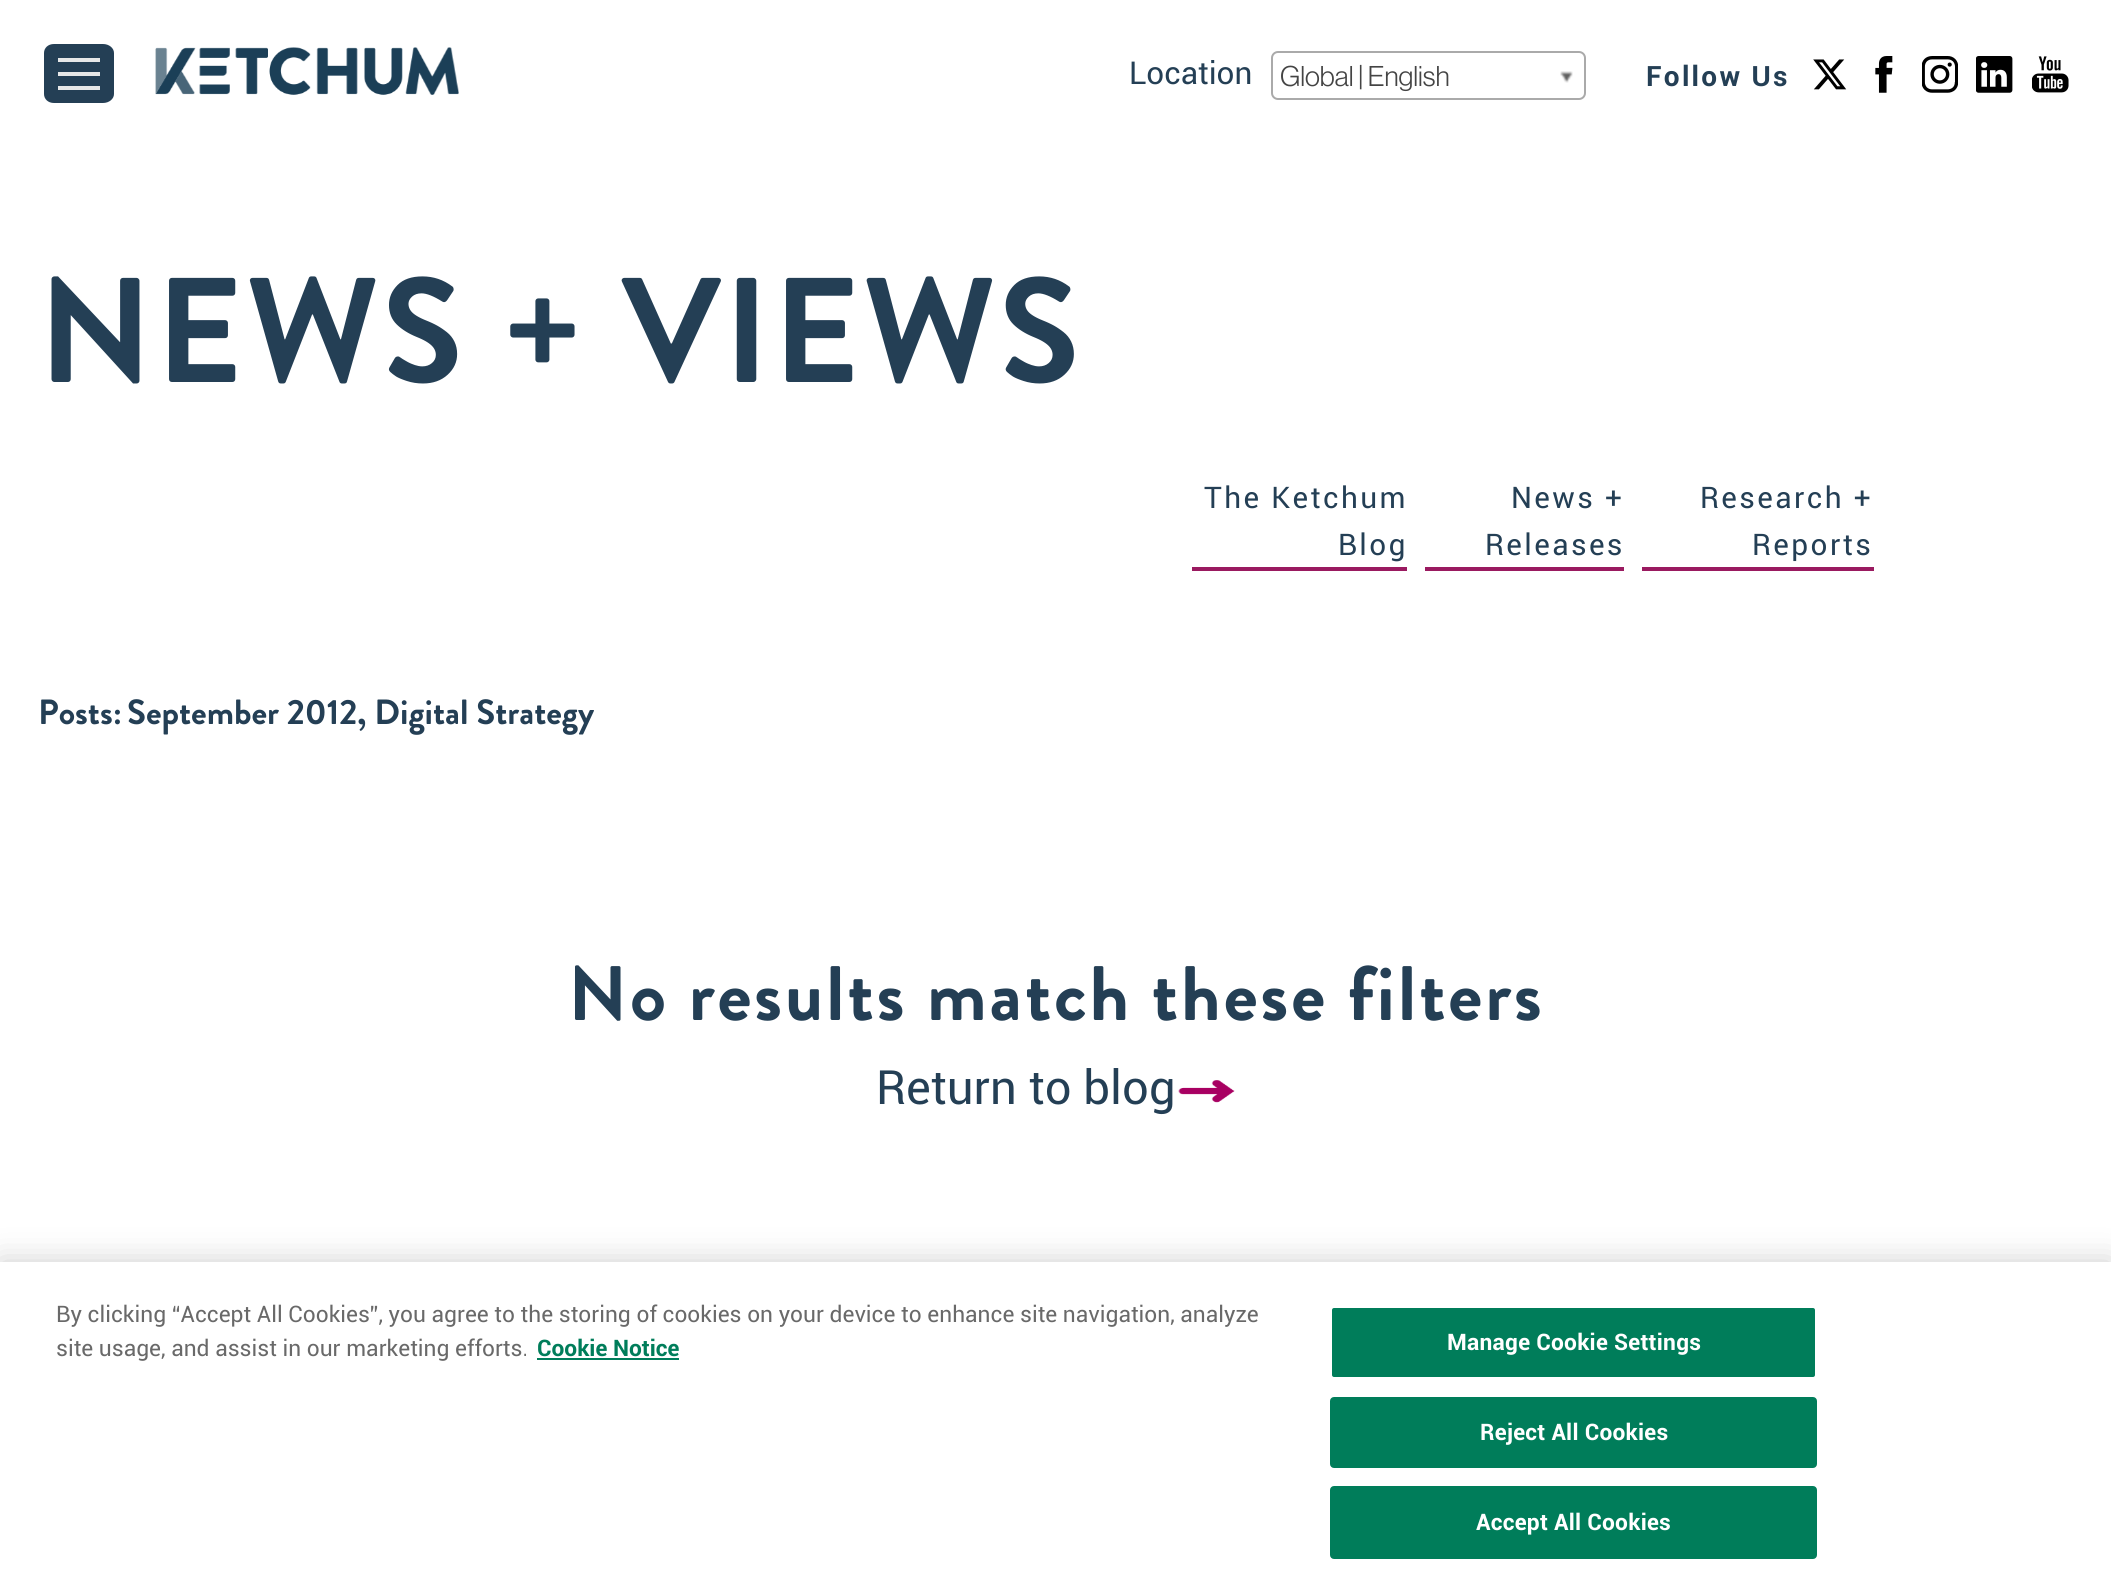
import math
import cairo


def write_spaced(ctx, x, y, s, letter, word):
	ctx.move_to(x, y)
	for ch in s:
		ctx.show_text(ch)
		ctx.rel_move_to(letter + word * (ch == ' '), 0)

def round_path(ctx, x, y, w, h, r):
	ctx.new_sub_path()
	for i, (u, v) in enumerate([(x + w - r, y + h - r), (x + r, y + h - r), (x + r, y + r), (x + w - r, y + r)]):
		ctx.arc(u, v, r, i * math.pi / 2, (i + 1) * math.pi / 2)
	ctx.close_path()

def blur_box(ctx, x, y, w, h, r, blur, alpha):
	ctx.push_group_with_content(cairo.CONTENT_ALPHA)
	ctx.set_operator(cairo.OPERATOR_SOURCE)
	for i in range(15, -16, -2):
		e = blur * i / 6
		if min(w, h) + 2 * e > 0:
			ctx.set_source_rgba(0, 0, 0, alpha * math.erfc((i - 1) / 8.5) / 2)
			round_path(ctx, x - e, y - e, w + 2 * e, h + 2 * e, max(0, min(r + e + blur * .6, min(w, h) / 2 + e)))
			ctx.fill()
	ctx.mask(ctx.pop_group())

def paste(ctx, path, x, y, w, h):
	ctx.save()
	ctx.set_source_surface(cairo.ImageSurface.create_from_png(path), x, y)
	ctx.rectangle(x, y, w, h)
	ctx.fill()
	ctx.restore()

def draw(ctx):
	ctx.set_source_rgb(1, 1, 1)
	ctx.paint()
	ctx.set_source_rgb(0.141, 0.247, 0.333)
	ctx.new_path()
	ctx.move_to(54, 44)
	ctx.line_to(103, 44)
	ctx.curve_to(109, 44, 114, 48, 114, 53)
	ctx.line_to(114, 94)
	ctx.curve_to(114, 99, 109, 103, 103, 103)
	ctx.line_to(54, 103)
	ctx.curve_to(48, 103, 44, 99, 44, 94)
	ctx.line_to(44, 53)
	ctx.curve_to(44, 48, 48, 44, 54, 44)
	ctx.close_path()
	ctx.fill()
	ctx.set_source_rgb(0.902, 0.906, 0.91)
	ctx.rectangle(58, 58, 42, 4)
	ctx.rectangle(58, 72, 42, 4)
	ctx.rectangle(58, 86, 42, 4)
	ctx.fill()
	paste(ctx, 'media/1.png', 155, 47, 304, 48)
	ctx.select_font_face('Roboto')
	ctx.set_font_size(31.5)
	ctx.set_source_rgb(0.141, 0.247, 0.333)
	ctx.move_to(1129, 84)
	ctx.show_text('Location')
	round_path(ctx, 1272, 52, 313, 47, 6)
	ctx.set_source_rgb(0.667, 0.667, 0.667)
	ctx.stroke()
	ctx.select_font_face('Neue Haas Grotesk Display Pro')
	ctx.set_font_size(28)
	ctx.set_source_rgb(0.267, 0.267, 0.267)
	ctx.move_to(1280, 86)
	ctx.show_text('Global | English')
	paste(ctx, 'media/2.png', 1560, 71, 13, 12)
	ctx.select_font_face('Roboto', cairo.FONT_SLANT_NORMAL, cairo.FONT_WEIGHT_BOLD)
	ctx.set_source_rgb(0.141, 0.247, 0.333)
	write_spaced(ctx, 1646, 86, 'Follow Us', 2.25, 0)
	paste(ctx, 'media/3.png', 1813, 59, 34, 31)
	paste(ctx, 'media/4.png', 1875, 56, 18, 37)
	paste(ctx, 'media/5.png', 1922, 56, 36, 37)
	paste(ctx, 'media/6.png', 1976, 56, 37, 37)
	paste(ctx, 'media/7.png', 2032, 56, 37, 37)
	ctx.select_font_face('Brandon Grotesque', cairo.FONT_SLANT_NORMAL, cairo.FONT_WEIGHT_BOLD)
	ctx.set_font_size(148.75)
	write_spaced(ctx, 38, 382, 'NEWS + VIEWS', 2.6, 0)
	ctx.select_font_face('Roboto')
	ctx.set_font_size(29.75)
	write_spaced(ctx, 1204, 508, 'The Ketchum', 2.4, 0)
	write_spaced(ctx, 1338, 555, 'Blog', 2.4, 0)
	ctx.set_source_rgb(0.604, 0.102, 0.376)
	ctx.rectangle(1192, 567, 215, 4)
	ctx.fill()
	ctx.set_source_rgb(0.141, 0.247, 0.333)
	write_spaced(ctx, 1511, 508, 'News +', 2.4, 0)
	write_spaced(ctx, 1485, 555, 'Releases', 2.4, 0)
	ctx.set_source_rgb(0.604, 0.102, 0.376)
	ctx.rectangle(1425, 567, 199, 4)
	ctx.fill()
	ctx.set_source_rgb(0.141, 0.247, 0.333)
	write_spaced(ctx, 1700, 508, 'Research +', 2.4, 0)
	write_spaced(ctx, 1752, 555, 'Reports', 2.4, 0)
	ctx.set_source_rgb(0.604, 0.102, 0.376)
	ctx.rectangle(1642, 567, 232, 4)
	ctx.fill()
	ctx.select_font_face('Brandon Grotesque', cairo.FONT_SLANT_NORMAL, cairo.FONT_WEIGHT_BOLD)
	ctx.set_font_size(35)
	ctx.set_source_rgb(0.141, 0.247, 0.333)
	ctx.move_to(38, 724)
	ctx.show_text('Posts:')
	ctx.move_to(127, 724)
	ctx.show_text('September 2012, Digital Strategy')
	ctx.set_font_size(77)
	write_spaced(ctx, 568, 1020, 'No results match these filters', 2.6, 0)
	ctx.select_font_face('Roboto')
	ctx.set_font_size(47.25)
	ctx.move_to(876, 1104)
	ctx.show_text('Return to blog')
	paste(ctx, 'media/8.png', 1178, 1080, 57, 23)
	ctx.set_source_rgb(0, 0, 0)
	blur_box(ctx, 0, 1262, 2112, 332, 0, 16, 0.2)
	ctx.set_source_rgb(1, 1, 1)
	ctx.rectangle(0, 1262, 2111, 331)
	ctx.fill()
	ctx.set_font_size(22.75)
	ctx.set_source_rgb(0.412, 0.412, 0.412)
	ctx.move_to(56, 1322)
	ctx.show_text('By clicking “Accept All Cookies”, you agree to the storing of cookies on your device to enhance site navigation, analyze')
	ctx.move_to(56, 1356)
	ctx.show_text('site usage, and assist in our marketing efforts.')
	ctx.select_font_face('Roboto', cairo.FONT_SLANT_NORMAL, cairo.FONT_WEIGHT_BOLD)
	ctx.set_source_rgb(0, 0.49, 0.353)
	ctx.move_to(537, 1356)
	ctx.show_text('Cookie Notice')
	ctx.rectangle(537, 1358, 142, 2)
	ctx.fill()
	round_path(ctx, 1331, 1307, 485, 71, 3)
	ctx.fill_preserve()
	ctx.set_source_rgb(1, 1, 1)
	ctx.stroke()
	write_spaced(ctx, 1447, 1350, 'Manage Cookie Settings', 0.25, 0)
	ctx.set_source_rgb(0, 0.49, 0.353)
	round_path(ctx, 1331, 1398, 485, 69, 3)
	ctx.fill_preserve()
	ctx.stroke()
	ctx.set_source_rgb(1, 1, 1)
	write_spaced(ctx, 1480, 1440, 'Reject All Cookies', 0.25, 0)
	ctx.set_source_rgb(0, 0.49, 0.353)
	round_path(ctx, 1331, 1487, 485, 71, 3)
	ctx.fill_preserve()
	ctx.stroke()
	ctx.set_source_rgb(1, 1, 1)
	write_spaced(ctx, 1476, 1530, 'Accept All Cookies', 0.25, 0)


surface = cairo.ImageSurface(cairo.FORMAT_RGB24, 2111, 1593)
ctx = cairo.Context(surface)
options = cairo.FontOptions()
options.set_hint_metrics(cairo.HINT_METRICS_OFF)
options.set_hint_style(cairo.HINT_STYLE_NONE)
ctx.set_font_options(options)
ctx.set_miter_limit(4)
draw(ctx)
surface.write_to_png('image.png')
